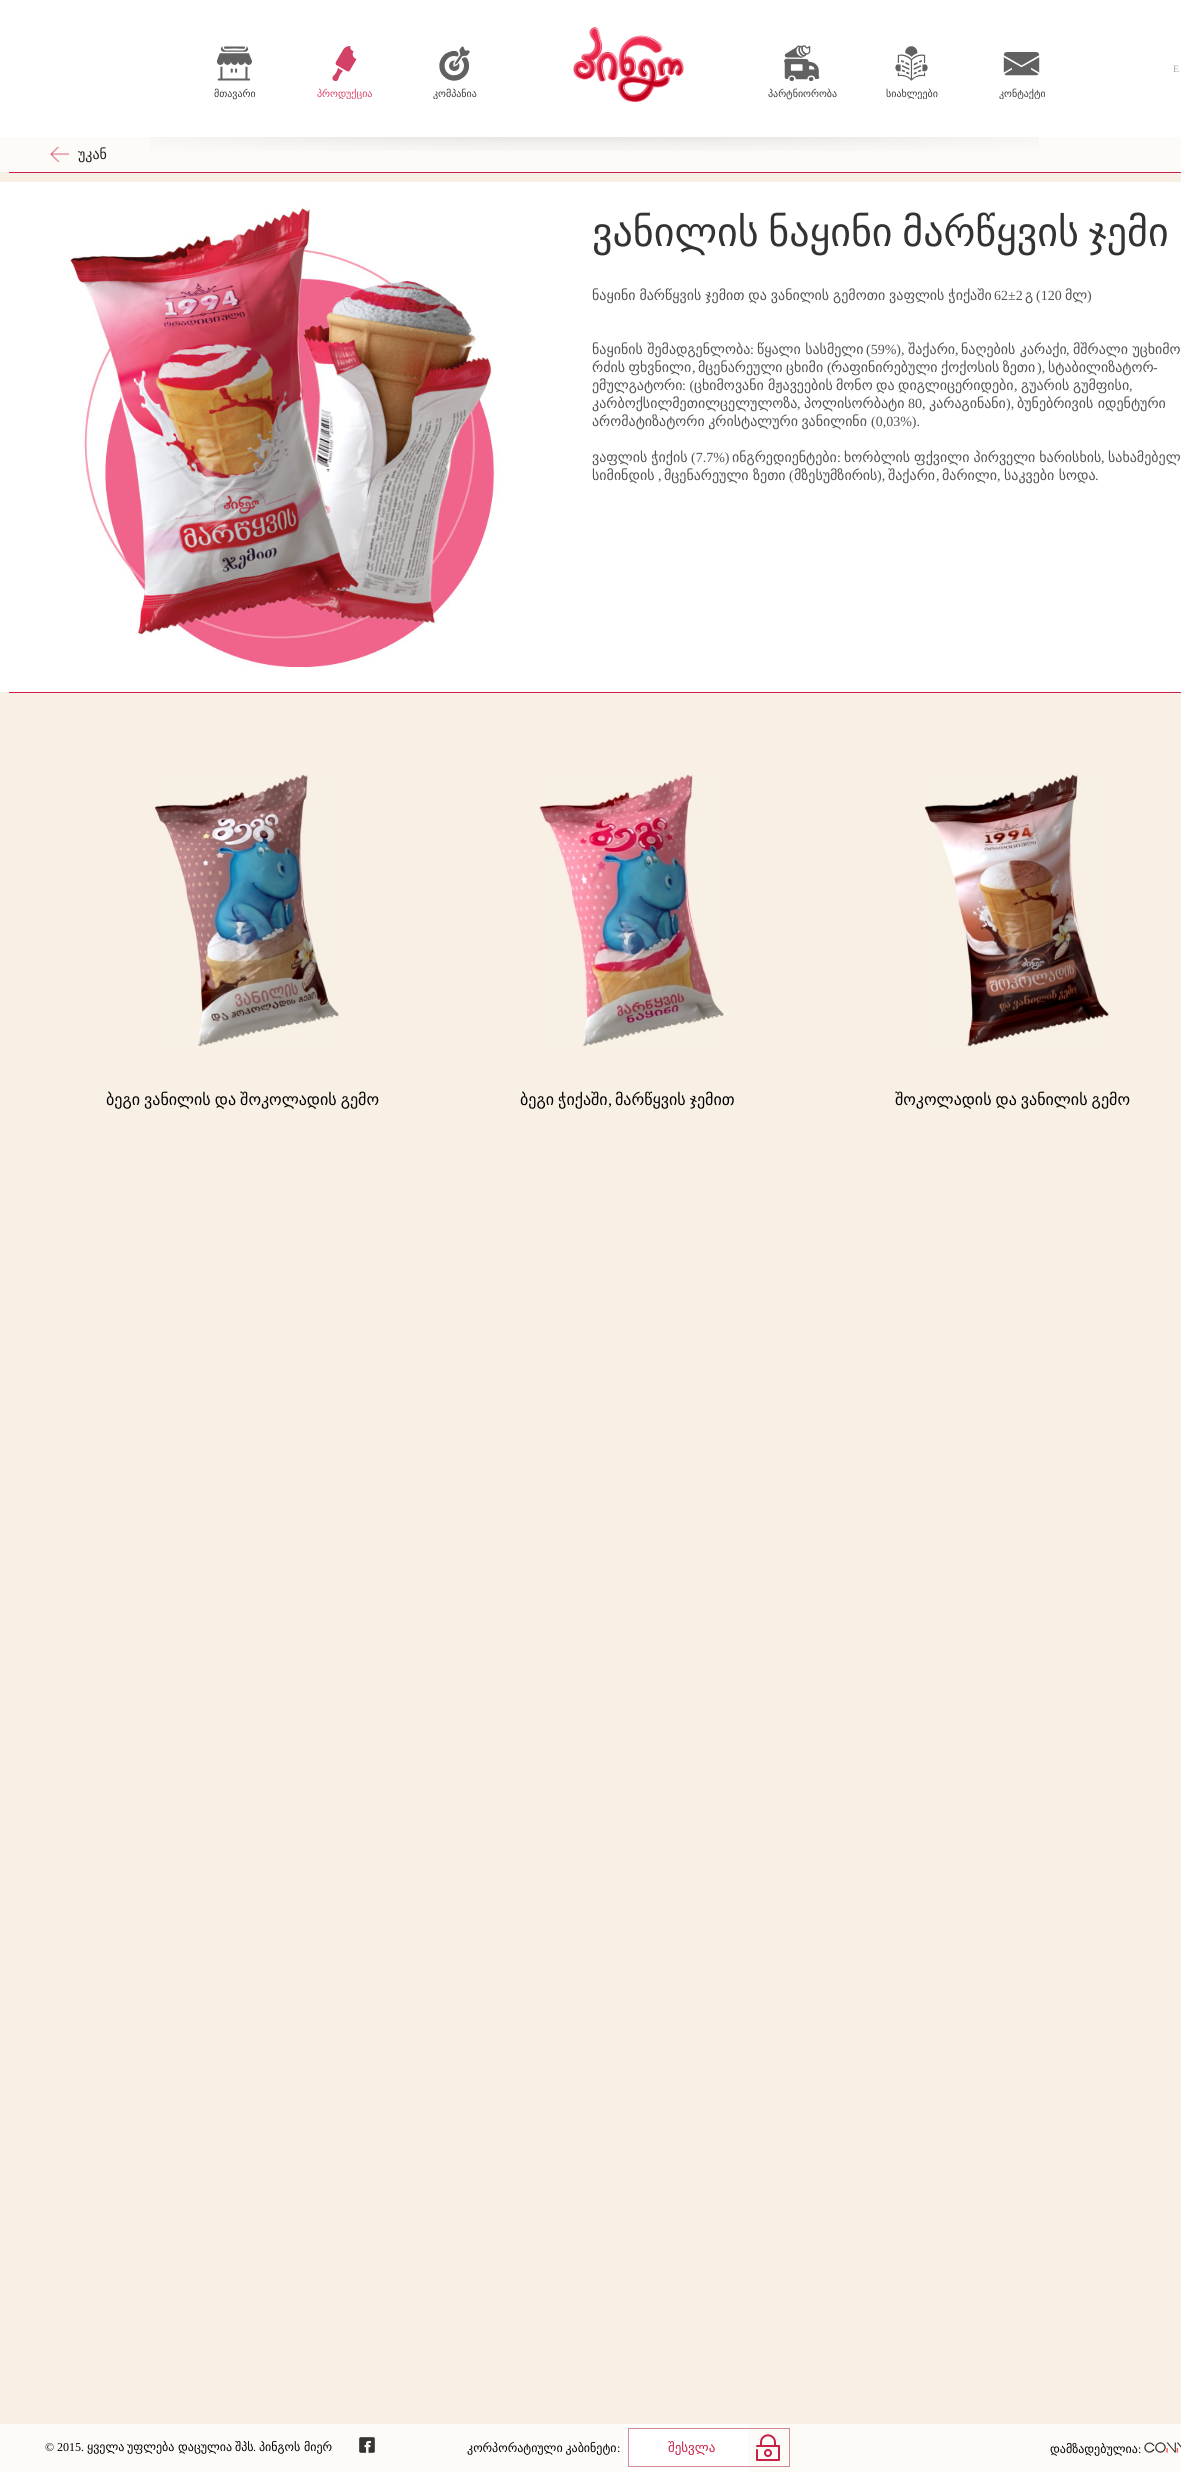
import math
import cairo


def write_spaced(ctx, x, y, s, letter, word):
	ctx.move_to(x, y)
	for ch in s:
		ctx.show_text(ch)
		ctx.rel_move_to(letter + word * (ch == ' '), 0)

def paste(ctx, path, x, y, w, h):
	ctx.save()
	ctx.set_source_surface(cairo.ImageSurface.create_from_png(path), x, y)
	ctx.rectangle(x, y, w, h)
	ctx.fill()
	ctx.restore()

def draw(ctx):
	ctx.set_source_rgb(0.973, 0.941, 0.898)
	ctx.paint()
	ctx.set_source_rgb(1, 1, 1)
	ctx.rectangle(0, 0, 1181, 137)
	ctx.fill()
	paste(ctx, 'media/1.png', 573, 27, 112, 75)
	ctx.select_font_face('Liberation Serif')
	ctx.set_font_size(10)
	ctx.set_source_rgb(0.651, 0.651, 0.651)
	ctx.move_to(1173, 72)
	ctx.show_text('E')
	paste(ctx, 'media/2.png', 216, 46, 36, 35)
	ctx.select_font_face('DejaVu Sans')
	ctx.set_source_rgb(0.224, 0.224, 0.224)
	ctx.move_to(214, 97)
	ctx.show_text('მთავარი')
	paste(ctx, 'media/3.png', 332, 46, 25, 35)
	ctx.save()
	ctx.rectangle(200, 39, 290, 60)
	ctx.clip()
	ctx.set_source_rgb(0.827, 0.259, 0.4)
	ctx.move_to(317, 97)
	ctx.show_text('პროდუქცია')
	ctx.restore()
	paste(ctx, 'media/4.png', 439, 46, 31, 35)
	ctx.save()
	ctx.rectangle(200, 39, 290, 60)
	ctx.clip()
	ctx.move_to(433, 97)
	ctx.show_text('კომპანია')
	ctx.restore()
	paste(ctx, 'media/5.png', 784, 45, 36, 36)
	ctx.move_to(768, 97)
	ctx.show_text('პარტნიორობა')
	paste(ctx, 'media/6.png', 895, 46, 33, 35)
	ctx.save()
	ctx.rectangle(767, 39, 290, 60)
	ctx.clip()
	ctx.move_to(886, 97)
	ctx.show_text('სიახლეები')
	ctx.restore()
	paste(ctx, 'media/7.png', 1003, 52, 37, 24)
	ctx.save()
	ctx.rectangle(767, 39, 290, 60)
	ctx.clip()
	ctx.move_to(999, 97)
	ctx.show_text('კონტაქტი')
	ctx.restore()
	ctx.set_source_rgb(0.992, 0.984, 0.969)
	ctx.rectangle(0, 137, 1181, 35)
	ctx.fill()
	paste(ctx, 'media/8.png', 150, 137, 889, 14)
	paste(ctx, 'media/9.png', 50, 147, 20, 15)
	ctx.set_font_size(14)
	ctx.set_source_rgb(0.106, 0.106, 0.106)
	ctx.move_to(78, 159)
	ctx.show_text('უკან')
	ctx.set_source_rgb(1, 1, 1)
	ctx.rectangle(0, 182, 1181, 510)
	ctx.fill()
	ctx.set_source_rgb(0.784, 0.129, 0.278)
	ctx.rectangle(9, 172, 1172, 1)
	ctx.fill()
	paste(ctx, 'media/10.png', 69, 207, 429, 460)
	ctx.set_font_size(40)
	ctx.set_source_rgb(0.2, 0.2, 0.2)
	write_spaced(ctx, 592, 246, 'ვანილის ნაყინი მარწყვის ჯემი', 0, -3)
	ctx.set_font_size(14)
	ctx.set_source_rgb(0.322, 0.322, 0.322)
	write_spaced(ctx, 592, 300, 'ნაყინი მარწყვის ჯემით და ვანილის გემოთი ვაფლის ჭიქაში', 0, -0.5)
	ctx.select_font_face('Liberation Serif')
	ctx.move_to(994, 300)
	ctx.show_text('62±2')
	ctx.select_font_face('DejaVu Sans')
	ctx.move_to(1025, 300)
	ctx.show_text('გ')
	ctx.select_font_face('Liberation Serif')
	ctx.move_to(1036, 300)
	ctx.show_text('(120')
	ctx.select_font_face('DejaVu Sans')
	ctx.move_to(1065, 300)
	ctx.show_text('მლ')
	ctx.select_font_face('Liberation Serif')
	ctx.move_to(1087, 300)
	ctx.show_text(')')
	ctx.select_font_face('DejaVu Sans')
	ctx.move_to(592, 354)
	ctx.show_text('ნაყინის შემადგენლობა')
	ctx.select_font_face('Liberation Serif')
	ctx.move_to(750, 354)
	ctx.show_text(':')
	ctx.select_font_face('DejaVu Sans')
	ctx.move_to(757, 354)
	ctx.show_text('წყალი სასმელი')
	ctx.select_font_face('Liberation Serif')
	ctx.move_to(866, 354)
	ctx.show_text('(59%),')
	ctx.select_font_face('DejaVu Sans')
	ctx.move_to(908, 354)
	ctx.show_text('შაქარი')
	ctx.select_font_face('Liberation Serif')
	ctx.move_to(955, 354)
	ctx.show_text(',')
	ctx.select_font_face('DejaVu Sans')
	ctx.move_to(961, 354)
	ctx.show_text('ნაღების კარაქი')
	ctx.select_font_face('Liberation Serif')
	ctx.move_to(1066, 354)
	ctx.show_text(',')
	ctx.select_font_face('DejaVu Sans')
	ctx.move_to(1073, 354)
	ctx.show_text('მშრალი უცხიმო')
	write_spaced(ctx, 592, 372, 'რძის ფხვნილი', 0, -1)
	write_spaced(ctx, 698, 372, 'მცენარეული ცხიმი', 0, -1)
	ctx.select_font_face('Liberation Serif')
	ctx.move_to(827, 372)
	ctx.show_text('(')
	ctx.select_font_face('DejaVu Sans')
	write_spaced(ctx, 831, 372, 'რაფინირებული ქოქოსის ზეთი', 0, -1)
	ctx.select_font_face('Liberation Serif')
	ctx.move_to(1037, 372)
	ctx.show_text('),')
	ctx.select_font_face('DejaVu Sans')
	ctx.move_to(1048, 372)
	ctx.show_text('სტაბილიზატორ')
	ctx.select_font_face('Liberation Serif')
	ctx.move_to(1153, 372)
	ctx.show_text('-')
	ctx.move_to(692, 372)
	ctx.show_text(',')
	ctx.select_font_face('DejaVu Sans')
	ctx.move_to(592, 390)
	ctx.show_text('ემულგატორი')
	ctx.select_font_face('Liberation Serif')
	ctx.move_to(682, 390)
	ctx.show_text(': (')
	ctx.select_font_face('DejaVu Sans')
	for x, y, s in [
		(694, 390, 'ცხიმოვანი'),
		(768, 390, 'მჟავეების'),
		(836, 390, 'მონო'),
		(876, 390, 'და'),
		(898, 390, 'დიგლიცერიდები'),
	]:
		ctx.move_to(x, y)
		ctx.show_text(s)
	ctx.select_font_face('Liberation Serif')
	ctx.move_to(1014, 390)
	ctx.show_text(',')
	ctx.select_font_face('DejaVu Sans')
	ctx.move_to(1021, 390)
	ctx.show_text('გუარის')
	ctx.move_to(1073, 390)
	ctx.show_text('გუმფისი')
	ctx.select_font_face('Liberation Serif')
	ctx.move_to(1129, 390)
	ctx.show_text(',')
	ctx.select_font_face('DejaVu Sans')
	ctx.move_to(592, 408)
	ctx.show_text('კარბოქსილმეთილცელულოზა')
	ctx.select_font_face('Liberation Serif')
	ctx.move_to(797, 408)
	ctx.show_text(',')
	ctx.select_font_face('DejaVu Sans')
	ctx.move_to(804, 408)
	ctx.show_text('პოლისორბატი')
	ctx.select_font_face('Liberation Serif')
	ctx.move_to(908, 408)
	ctx.show_text('80,')
	ctx.select_font_face('DejaVu Sans')
	ctx.move_to(929, 408)
	ctx.show_text('კარაგინანი')
	ctx.select_font_face('Liberation Serif')
	ctx.move_to(1006, 408)
	ctx.show_text('),')
	ctx.select_font_face('DejaVu Sans')
	ctx.move_to(1017, 408)
	ctx.show_text('ბუნებრივის იდენტური')
	write_spaced(ctx, 592, 426, 'არომატიზატორი კრისტალური ვანილინი', 0, -1)
	ctx.select_font_face('Liberation Serif')
	ctx.move_to(871, 426)
	ctx.show_text('(0,03%).')
	ctx.select_font_face('DejaVu Sans')
	write_spaced(ctx, 592, 462, 'ვაფლის ჭიქის', 0, -0.5)
	ctx.select_font_face('Liberation Serif')
	ctx.move_to(691, 462)
	ctx.show_text('(7.7%)')
	ctx.select_font_face('DejaVu Sans')
	ctx.move_to(732, 462)
	ctx.show_text('ინგრედიენტები')
	ctx.select_font_face('Liberation Serif')
	ctx.move_to(837, 462)
	ctx.show_text(':')
	ctx.select_font_face('DejaVu Sans')
	write_spaced(ctx, 844, 462, 'ხორბლის ფქვილი პირველი ხარისხის', 0, -0.5)
	ctx.select_font_face('Liberation Serif')
	ctx.move_to(1101, 462)
	ctx.show_text(',')
	ctx.select_font_face('DejaVu Sans')
	ctx.move_to(1108, 462)
	ctx.show_text('სახამებელ')
	ctx.move_to(592, 480)
	ctx.show_text('სიმინდის')
	ctx.select_font_face('Liberation Serif')
	ctx.move_to(658, 480)
	ctx.show_text(',')
	ctx.select_font_face('DejaVu Sans')
	ctx.move_to(664, 480)
	ctx.show_text('მცენარეული ზეთი')
	ctx.select_font_face('Liberation Serif')
	ctx.move_to(789, 480)
	ctx.show_text('(')
	ctx.select_font_face('DejaVu Sans')
	ctx.move_to(794, 480)
	ctx.show_text('მზესუმზირის')
	ctx.select_font_face('Liberation Serif')
	ctx.move_to(877, 480)
	ctx.show_text('),')
	ctx.select_font_face('DejaVu Sans')
	ctx.move_to(888, 480)
	ctx.show_text('შაქარი')
	ctx.select_font_face('Liberation Serif')
	ctx.move_to(936, 480)
	ctx.show_text(',')
	ctx.select_font_face('DejaVu Sans')
	ctx.move_to(942, 480)
	ctx.show_text('მარილი')
	ctx.select_font_face('Liberation Serif')
	ctx.move_to(997, 480)
	ctx.show_text(',')
	ctx.select_font_face('DejaVu Sans')
	ctx.move_to(1004, 480)
	ctx.show_text('საკვები სოდა')
	ctx.select_font_face('Liberation Serif')
	ctx.move_to(1095, 480)
	ctx.show_text('.')
	ctx.set_source_rgb(0.784, 0.129, 0.278)
	ctx.rectangle(9, 692, 1172, 1)
	ctx.fill()
	paste(ctx, 'media/11.png', 154, 774, 185, 273)
	ctx.select_font_face('DejaVu Sans')
	ctx.set_font_size(16)
	ctx.set_source_rgb(0.004, 0.004, 0.004)
	write_spaced(ctx, 106, 1105, 'ბეგი ვანილის და შოკოლადის გემო', 0, -1)
	paste(ctx, 'media/12.png', 539, 774, 185, 273)
	write_spaced(ctx, 520, 1105, 'ბეგი ჭიქაში', 0, -1)
	ctx.select_font_face('Liberation Serif')
	ctx.move_to(608, 1105)
	ctx.show_text(',')
	ctx.select_font_face('DejaVu Sans')
	write_spaced(ctx, 615, 1105, 'მარწყვის ჯემით', 0, -1)
	paste(ctx, 'media/13.png', 924, 774, 185, 273)
	write_spaced(ctx, 895, 1105, 'შოკოლადის და ვანილის გემო', 0, -1)
	ctx.set_source_rgb(0.992, 0.984, 0.969)
	ctx.rectangle(0, 2424, 1181, 48)
	ctx.fill()
	ctx.select_font_face('Liberation Serif')
	ctx.set_font_size(12)
	ctx.set_source_rgb(0.004, 0.004, 0.004)
	ctx.move_to(45, 2451)
	ctx.show_text('© 2015.')
	ctx.select_font_face('DejaVu Sans')
	for x, y, s in [
		(87, 2451, 'ყველა'),
		(127, 2451, 'უფლება'),
		(178, 2451, 'დაცულია'),
		(235, 2451, 'შპს'),
	]:
		ctx.move_to(x, y)
		ctx.show_text(s)
	ctx.select_font_face('Liberation Serif')
	ctx.move_to(253, 2451)
	ctx.show_text('.')
	ctx.select_font_face('DejaVu Sans')
	ctx.move_to(259, 2451)
	ctx.show_text('პინგოს')
	ctx.move_to(304, 2451)
	ctx.show_text('მიერ')
	paste(ctx, 'media/14.png', 359, 2437, 16, 16)
	write_spaced(ctx, 467, 2452, 'კორპორატიული კაბინეტი', 0, -1)
	ctx.select_font_face('Liberation Serif')
	ctx.move_to(617, 2452)
	ctx.show_text(':')
	ctx.set_source_rgb(1, 1, 1)
	ctx.rectangle(624, 2424, 124, 48)
	ctx.fill()
	paste(ctx, 'media/15.png', 756, 2434, 24, 27)
	ctx.rectangle(628.5, 2428.5, 161, 38)
	ctx.set_source_rgb(0.831, 0.541, 0.584)
	ctx.set_line_width(1)
	ctx.stroke()
	ctx.select_font_face('DejaVu Sans')
	ctx.set_font_size(13)
	ctx.set_source_rgb(0.784, 0.129, 0.278)
	ctx.move_to(668, 2452)
	ctx.show_text('შესვლა')
	ctx.set_font_size(12)
	ctx.set_source_rgb(0.004, 0.004, 0.004)
	ctx.move_to(1050, 2453)
	ctx.show_text('დამზადებულია')
	ctx.select_font_face('Liberation Serif')
	ctx.move_to(1138, 2453)
	ctx.show_text(':')
	paste(ctx, 'media/16.png', 1144, 2442, 37, 11)


surface = cairo.ImageSurface(cairo.FORMAT_RGB24, 1181, 2472)
ctx = cairo.Context(surface)
options = cairo.FontOptions()
options.set_hint_metrics(cairo.HINT_METRICS_OFF)
options.set_hint_style(cairo.HINT_STYLE_NONE)
ctx.set_font_options(options)
ctx.set_miter_limit(4)
draw(ctx)
surface.write_to_png('image.png')
